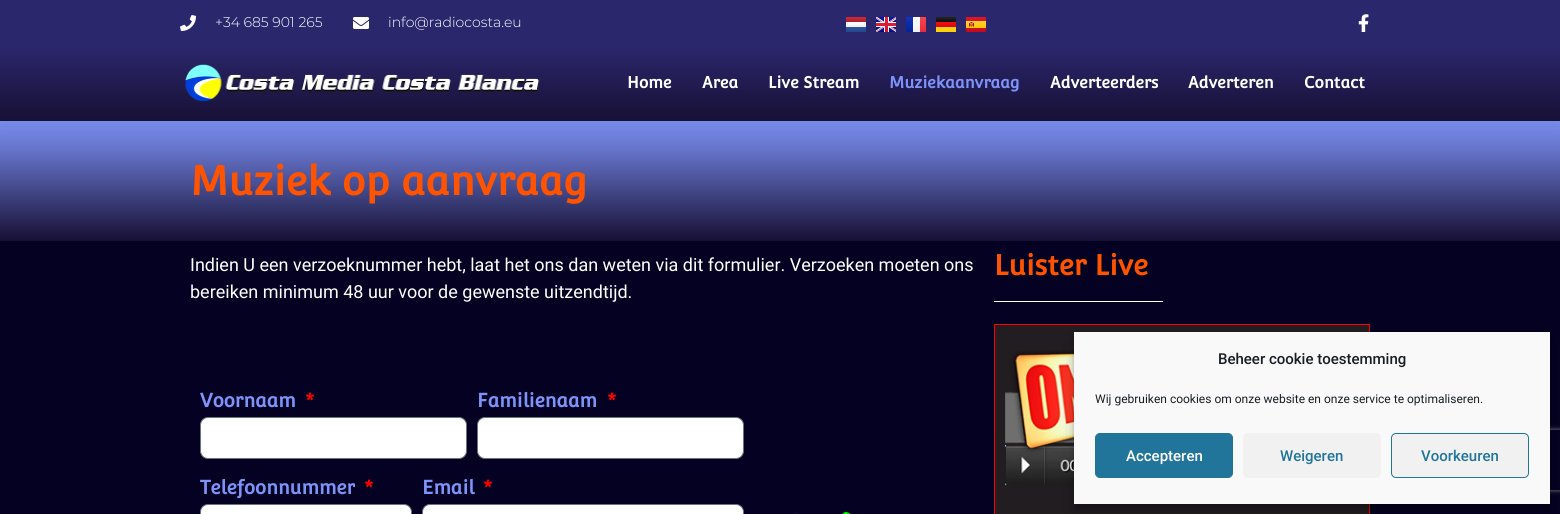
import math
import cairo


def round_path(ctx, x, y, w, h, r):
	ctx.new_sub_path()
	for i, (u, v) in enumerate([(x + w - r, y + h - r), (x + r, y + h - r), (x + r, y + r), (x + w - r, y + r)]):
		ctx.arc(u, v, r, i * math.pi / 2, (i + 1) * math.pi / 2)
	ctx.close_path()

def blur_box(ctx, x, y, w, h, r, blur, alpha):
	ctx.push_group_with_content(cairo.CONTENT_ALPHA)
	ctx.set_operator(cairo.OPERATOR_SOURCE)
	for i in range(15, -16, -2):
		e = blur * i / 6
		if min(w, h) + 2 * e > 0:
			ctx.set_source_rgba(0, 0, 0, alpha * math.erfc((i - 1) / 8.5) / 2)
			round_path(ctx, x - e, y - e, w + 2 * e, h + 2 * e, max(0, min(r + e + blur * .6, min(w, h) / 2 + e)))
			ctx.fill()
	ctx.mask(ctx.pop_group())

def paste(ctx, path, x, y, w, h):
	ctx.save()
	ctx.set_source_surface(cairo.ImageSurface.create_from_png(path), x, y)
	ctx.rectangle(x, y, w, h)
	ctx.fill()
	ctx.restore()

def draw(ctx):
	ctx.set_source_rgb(0.016, 0.004, 0.133)
	ctx.paint()
	gradient = cairo.LinearGradient(780, 121, 780, 241)
	gradient.add_color_stop_rgba(0, 0.494, 0.576, 0.973, 1)
	gradient.add_color_stop_rgba(1, 0.09, 0.063, 0.208, 1)
	ctx.set_source(gradient)
	ctx.rectangle(0, 121, 1560, 120)
	ctx.fill()
	ctx.set_source_rgb(0, 0, 0)
	blur_box(ctx, 0, 5, 1560, 121, 0, 15, 0.1)
	ctx.set_source_rgb(0.169, 0.153, 0.427)
	ctx.rectangle(0, 0, 1560, 45)
	ctx.fill()
	paste(ctx, 'media/1.png', 180, 15, 16, 16)
	ctx.select_font_face('Montserrat Light')
	ctx.set_font_size(14)
	ctx.set_source_rgb(1, 1, 1)
	ctx.move_to(215, 27)
	ctx.show_text('+34 685 901 265')
	paste(ctx, 'media/2.png', 353, 17, 16, 12)
	ctx.move_to(388, 27)
	ctx.show_text('info@radiocosta.eu')
	gradient = cairo.LinearGradient(857, 17, 857, 22)
	gradient.add_color_stop_rgba(0, 0.792, 0.169, 0.224, 1)
	gradient.add_color_stop_rgba(1, 0.675, 0.122, 0.173, 1)
	ctx.set_source(gradient)
	ctx.rectangle(846, 17, 20, 5)
	ctx.fill()
	gradient = cairo.LinearGradient(857, 22, 857, 27)
	gradient.add_color_stop_rgba(0, 1, 1, 1, 1)
	gradient.add_color_stop_rgba(1, 0.941, 0.941, 0.941, 1)
	ctx.set_source(gradient)
	ctx.rectangle(846, 22, 20, 5)
	ctx.fill()
	gradient = cairo.LinearGradient(857, 27, 857, 32)
	gradient.add_color_stop_rgba(0, 0.173, 0.337, 0.635, 1)
	gradient.add_color_stop_rgba(1, 0.141, 0.282, 0.537, 1)
	ctx.set_source(gradient)
	ctx.rectangle(846, 27, 20, 5)
	ctx.fill()
	paste(ctx, 'media/3.png', 876, 17, 20, 15)
	gradient = cairo.LinearGradient(910, 17, 910, 32)
	gradient.add_color_stop_rgba(0, 0.063, 0.208, 0.733, 1)
	gradient.add_color_stop_rgba(1, 0.016, 0.137, 0.588, 1)
	ctx.set_source(gradient)
	ctx.rectangle(906, 17, 7, 15)
	ctx.fill()
	gradient = cairo.LinearGradient(917, 17, 917, 32)
	gradient.add_color_stop_rgba(0, 1, 1, 1, 1)
	gradient.add_color_stop_rgba(1, 0.941, 0.941, 0.941, 1)
	ctx.set_source(gradient)
	ctx.rectangle(913, 17, 7, 15)
	ctx.fill()
	gradient = cairo.LinearGradient(922, 17, 922, 32)
	gradient.add_color_stop_rgba(0, 0.957, 0.275, 0.325, 1)
	gradient.add_color_stop_rgba(1, 0.933, 0.165, 0.224, 1)
	ctx.set_source(gradient)
	ctx.rectangle(920, 17, 6, 15)
	ctx.fill()
	gradient = cairo.LinearGradient(947, 17, 947, 22)
	gradient.add_color_stop_rgba(0, 0.149, 0.149, 0.149, 1)
	gradient.add_color_stop_rgba(1, 0.051, 0.051, 0.051, 1)
	ctx.set_source(gradient)
	ctx.rectangle(936, 17, 20, 5)
	ctx.fill()
	gradient = cairo.LinearGradient(947, 22, 947, 27)
	gradient.add_color_stop_rgba(0, 0.941, 0.082, 0.082, 1)
	gradient.add_color_stop_rgba(1, 0.871, 0, 0, 1)
	ctx.set_source(gradient)
	ctx.rectangle(936, 22, 20, 5)
	ctx.fill()
	gradient = cairo.LinearGradient(947, 27, 947, 32)
	gradient.add_color_stop_rgba(0, 1, 0.835, 0.129, 1)
	gradient.add_color_stop_rgba(1, 1, 0.812, 0, 1)
	ctx.set_source(gradient)
	ctx.rectangle(936, 27, 20, 5)
	ctx.fill()
	paste(ctx, 'media/4.png', 966, 17, 20, 15)
	paste(ctx, 'media/5.png', 1358, 14, 11, 18)
	gradient = cairo.LinearGradient(780, 45, 780, 121)
	gradient.add_color_stop_rgba(0, 0.169, 0.153, 0.427, 1)
	gradient.add_color_stop_rgba(1, 0.09, 0.063, 0.208, 1)
	ctx.set_source(gradient)
	ctx.rectangle(0, 45, 1560, 76)
	ctx.fill()
	paste(ctx, 'media/6.png', 185, 64, 355, 37)
	ctx.select_font_face('Convergence', cairo.FONT_SLANT_NORMAL, cairo.FONT_WEIGHT_BOLD)
	ctx.set_font_size(16)
	ctx.set_source_rgb(1, 1, 1)
	for x, y, s in [
		(627, 88, 'Home'),
		(702, 88, 'Area'),
		(768, 88, 'Live Stream'),
	]:
		ctx.move_to(x, y)
		ctx.show_text(s)
	ctx.set_source_rgb(0.494, 0.576, 0.973)
	ctx.move_to(889, 88)
	ctx.show_text('Muziekaanvraag')
	ctx.set_source_rgb(1, 1, 1)
	for x, y, s in [
		(1050, 88, 'Adverteerders'),
		(1188, 88, 'Adverteren'),
		(1304, 88, 'Contact'),
	]:
		ctx.move_to(x, y)
		ctx.show_text(s)
	ctx.set_font_size(40)
	ctx.set_source_rgb(1, 0.325, 0)
	ctx.move_to(190, 195)
	ctx.show_text('Muziek op aanvraag')
	ctx.select_font_face('Roboto')
	ctx.set_font_size(18)
	ctx.set_source_rgb(1, 1, 1)
	ctx.move_to(190, 271)
	ctx.show_text('Indien U een verzoeknummer hebt, laat het ons dan weten via dit formulier. Verzoeken moeten ons')
	ctx.move_to(190, 298)
	ctx.show_text('bereiken minimum 48 uur voor de gewenste uitzendtijd.')
	ctx.select_font_face('Convergence', cairo.FONT_SLANT_NORMAL, cairo.FONT_WEIGHT_BOLD)
	ctx.set_font_size(19)
	ctx.set_source_rgb(0.494, 0.576, 0.973)
	ctx.move_to(200, 407)
	ctx.show_text('Voornaam')
	ctx.set_source_rgb(1, 0, 0)
	ctx.move_to(305, 407)
	ctx.show_text('*')
	ctx.set_source_rgb(1, 1, 1)
	round_path(ctx, 200.5, 417.5, 266, 41, 7.5)
	ctx.fill_preserve()
	ctx.set_source_rgb(0.412, 0.447, 0.49)
	ctx.set_line_width(1)
	ctx.stroke()
	ctx.set_source_rgb(0.494, 0.576, 0.973)
	ctx.move_to(477, 407)
	ctx.show_text('Familienaam')
	ctx.set_source_rgb(1, 0, 0)
	ctx.move_to(607, 407)
	ctx.show_text('*')
	ctx.set_source_rgb(1, 1, 1)
	round_path(ctx, 477.5, 417.5, 266, 41, 7.5)
	ctx.fill_preserve()
	ctx.set_source_rgb(0.412, 0.447, 0.49)
	ctx.stroke()
	ctx.set_source_rgb(0.494, 0.576, 0.973)
	ctx.move_to(200, 494)
	ctx.show_text('Telefoonnummer')
	ctx.set_source_rgb(1, 0, 0)
	ctx.move_to(364, 494)
	ctx.show_text('*')
	ctx.set_source_rgb(1, 1, 1)
	round_path(ctx, 200.5, 504.5, 211, 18, 7.5)
	ctx.fill_preserve()
	ctx.set_source_rgb(0.412, 0.447, 0.49)
	ctx.stroke()
	ctx.set_source_rgb(0.494, 0.576, 0.973)
	ctx.move_to(422, 494)
	ctx.show_text('Email')
	ctx.set_source_rgb(1, 0, 0)
	ctx.move_to(483, 494)
	ctx.show_text('*')
	ctx.set_source_rgb(1, 1, 1)
	round_path(ctx, 422.5, 504.5, 321, 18, 7.5)
	ctx.fill_preserve()
	ctx.set_source_rgb(0.412, 0.447, 0.49)
	ctx.stroke()
	paste(ctx, 'media/7.png', 794, 511, 57, 3)
	ctx.set_font_size(28)
	ctx.set_source_rgb(1, 0.325, 0)
	ctx.move_to(994, 275)
	ctx.show_text('Luister Live')
	ctx.set_source_rgb(1, 1, 1)
	ctx.rectangle(994, 301, 169, 1)
	ctx.fill()
	ctx.set_source_rgb(0.133, 0.114, 0.129)
	ctx.rectangle(994.5, 324.5, 375, 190)
	ctx.fill_preserve()
	ctx.set_source_rgb(1, 0, 0)
	ctx.stroke()
	paste(ctx, 'media/8.png', 1005, 350, 69, 136)
	ctx.set_source_rgb(0, 0, 0)
	blur_box(ctx, 1074, 338, 476, 172, 0, 3, 0.23)
	blur_box(ctx, 1074, 342, 476, 172, 0, 10, 0.19)
	ctx.save()
	ctx.set_fill_rule(cairo.FILL_RULE_EVEN_ODD)
	ctx.new_path()
	ctx.move_to(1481, 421)
	ctx.line_to(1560, 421)
	ctx.line_to(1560, 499)
	ctx.line_to(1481, 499)
	ctx.close_path()
	ctx.move_to(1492, 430)
	ctx.line_to(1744, 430)
	ctx.curve_to(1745, 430, 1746, 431, 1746, 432)
	ctx.line_to(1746, 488)
	ctx.curve_to(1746, 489, 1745, 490, 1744, 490)
	ctx.line_to(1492, 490)
	ctx.curve_to(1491, 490, 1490, 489, 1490, 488)
	ctx.line_to(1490, 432)
	ctx.curve_to(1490, 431, 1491, 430, 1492, 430)
	ctx.close_path()
	ctx.clip()
	ctx.set_source_rgb(0.502, 0.502, 0.502)
	blur_box(ctx, 1490, 430, 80, 60, 2, 2.5, 1)
	ctx.restore()
	ctx.set_source_rgb(0.976, 0.976, 0.976)
	ctx.rectangle(1074, 332, 476, 172)
	ctx.fill()
	ctx.select_font_face('Roboto Medium')
	ctx.set_font_size(15)
	ctx.set_source_rgb(0.098, 0.118, 0.137)
	ctx.move_to(1218, 364)
	ctx.show_text('Beheer cookie toestemming')
	ctx.select_font_face('Roboto')
	ctx.set_font_size(12)
	ctx.move_to(1095, 403)
	ctx.show_text('Wij gebruiken cookies om onze website en onze service te optimaliseren.')
	ctx.set_source_rgb(0.129, 0.459, 0.608)
	round_path(ctx, 1095.5, 433.5, 137, 44, 4.5)
	ctx.fill_preserve()
	ctx.stroke()
	ctx.select_font_face('Roboto Medium')
	ctx.set_font_size(15)
	ctx.set_source_rgb(1, 1, 1)
	ctx.move_to(1126, 461)
	ctx.show_text('Accepteren')
	ctx.set_source_rgb(0.945, 0.945, 0.945)
	round_path(ctx, 1243, 433, 138, 45, 5)
	ctx.fill()
	ctx.set_source_rgb(0.129, 0.459, 0.608)
	ctx.move_to(1280, 461)
	ctx.show_text('Weigeren')
	ctx.set_source_rgb(0.945, 0.945, 0.945)
	round_path(ctx, 1391.5, 433.5, 137, 44, 4.5)
	ctx.fill_preserve()
	ctx.set_source_rgb(0.129, 0.459, 0.608)
	ctx.stroke()
	ctx.move_to(1421, 461)
	ctx.show_text('Voorkeuren')


surface = cairo.ImageSurface(cairo.FORMAT_RGB24, 1560, 514)
ctx = cairo.Context(surface)
options = cairo.FontOptions()
options.set_hint_metrics(cairo.HINT_METRICS_OFF)
options.set_hint_style(cairo.HINT_STYLE_NONE)
ctx.set_font_options(options)
ctx.set_miter_limit(4)
draw(ctx)
surface.write_to_png('image.png')
